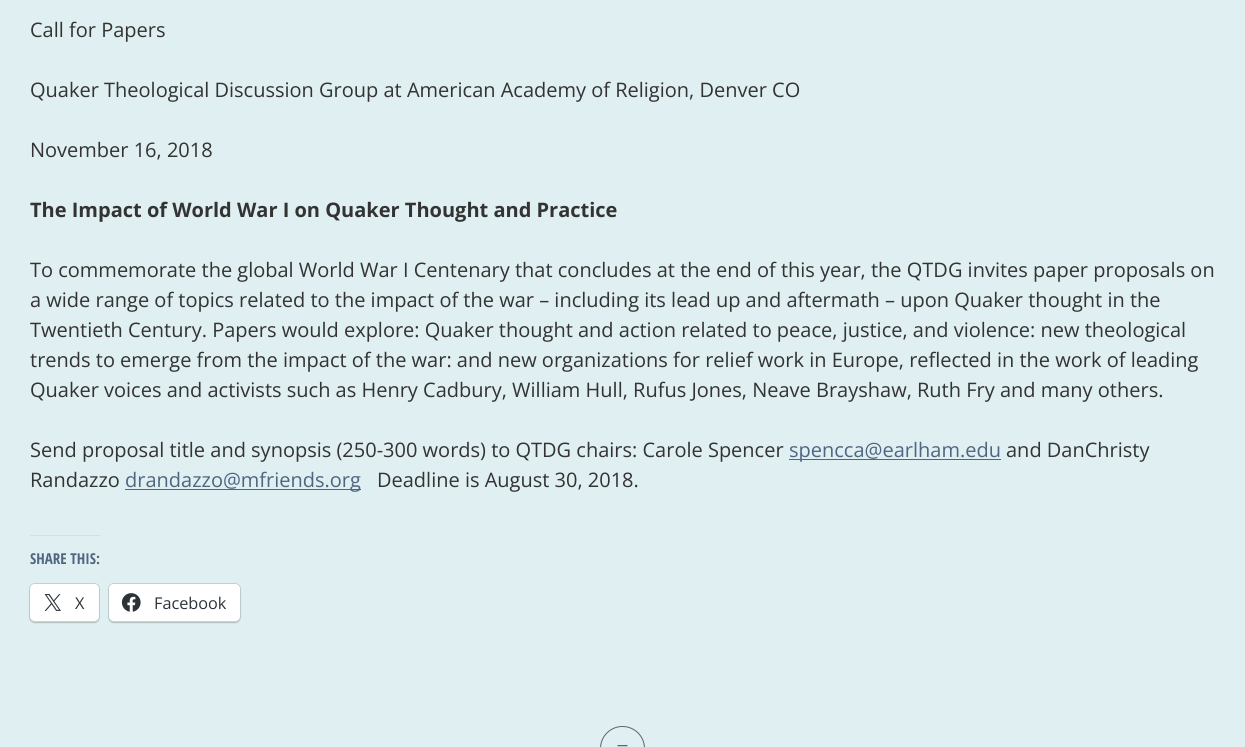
import math
import cairo


def round_path(ctx, x, y, w, h, r):
	ctx.new_sub_path()
	for i, (u, v) in enumerate([(x + w - r, y + h - r), (x + r, y + h - r), (x + r, y + r), (x + w - r, y + r)]):
		ctx.arc(u, v, r, i * math.pi / 2, (i + 1) * math.pi / 2)
	ctx.close_path()

def blur_box(ctx, x, y, w, h, r, blur, alpha):
	ctx.push_group_with_content(cairo.CONTENT_ALPHA)
	ctx.set_operator(cairo.OPERATOR_SOURCE)
	for i in range(15, -16, -2):
		e = blur * i / 6
		if min(w, h) + 2 * e > 0:
			ctx.set_source_rgba(0, 0, 0, alpha * math.erfc((i - 1) / 8.5) / 2)
			round_path(ctx, x - e, y - e, w + 2 * e, h + 2 * e, max(0, min(r + e + blur * .6, min(w, h) / 2 + e)))
			ctx.fill()
	ctx.mask(ctx.pop_group())

def paste(ctx, path, x, y, w, h):
	ctx.save()
	ctx.set_source_surface(cairo.ImageSurface.create_from_png(path), x, y)
	ctx.rectangle(x, y, w, h)
	ctx.fill()
	ctx.restore()

def draw(ctx):
	ctx.set_source_rgb(0.878, 0.937, 0.945)
	ctx.paint()
	ctx.select_font_face('Open Sans')
	ctx.set_font_size(20)
	ctx.set_source_rgb(0.2, 0.2, 0.2)
	for x, y, s in [
		(30, 37, 'Call for Papers'),
		(30, 97, 'Quaker Theological Discussion Group at American Academy of Religion, Denver CO'),
		(30, 157, 'November 16, 2018'),
	]:
		ctx.move_to(x, y)
		ctx.show_text(s)
	ctx.select_font_face('Open Sans', cairo.FONT_SLANT_NORMAL, cairo.FONT_WEIGHT_BOLD)
	ctx.move_to(30, 217)
	ctx.show_text('The Impact of World War I on Quaker Thought and Practice')
	ctx.select_font_face('Open Sans')
	for x, y, s in [
		(30, 277, 'To commemorate the global World War I Centenary that concludes at the end of this year, the QTDG invites paper proposals on'),
		(30, 307, 'a wide range of topics related to the impact of the war – including its lead up and aftermath – upon Quaker thought in the'),
		(30, 337, 'Twentieth Century. Papers would explore: Quaker thought and action related to peace, justice, and violence: new theological'),
		(30, 367, 'trends to emerge from the impact of the war: and new organizations for relief work in Europe, reflected in the work of leading'),
		(30, 397, 'Quaker voices and activists such as Henry Cadbury, William Hull, Rufus Jones, Neave Brayshaw, Ruth Fry and many others.'),
		(30, 457, 'Send proposal title and synopsis (250-300 words) to QTDG chairs: Carole Spencer'),
	]:
		ctx.move_to(x, y)
		ctx.show_text(s)
	ctx.set_source_rgb(0.31, 0.4, 0.506)
	ctx.rectangle(789, 459, 212, 1)
	ctx.fill()
	ctx.move_to(789, 457)
	ctx.show_text('spencca@earlham.edu')
	ctx.set_source_rgb(0.2, 0.2, 0.2)
	ctx.move_to(1006, 457)
	ctx.show_text('and DanChristy')
	ctx.move_to(30, 487)
	ctx.show_text('Randazzo')
	ctx.set_source_rgb(0.31, 0.4, 0.506)
	ctx.rectangle(125, 489, 236, 1)
	ctx.fill()
	ctx.move_to(125, 487)
	ctx.show_text('drandazzo@mfriends.org')
	ctx.set_source_rgb(0.2, 0.2, 0.2)
	ctx.move_to(377, 487)
	ctx.show_text('Deadline is August 30, 2018.')
	ctx.set_source_rgb(0.863, 0.863, 0.871)
	ctx.rectangle(30, 535, 70, 1)
	ctx.fill()
	ctx.select_font_face('Open Sans Condensed', cairo.FONT_SLANT_NORMAL, cairo.FONT_WEIGHT_BOLD)
	ctx.set_font_size(15)
	ctx.set_source_rgb(0.31, 0.4, 0.506)
	ctx.move_to(30, 564)
	ctx.show_text('SHARE THIS:')
	round_path(ctx, 29.5, 583.5, 70, 39, 5.5)
	ctx.set_source_rgb(0.773, 0.824, 0.831)
	ctx.set_line_width(1)
	ctx.stroke()
	ctx.set_source_rgb(0, 0, 0)
	blur_box(ctx, 30, 585, 69, 38, 5, 1, 0.12)
	ctx.set_source_rgb(1, 1, 1)
	round_path(ctx, 30, 584, 69, 37, 5)
	ctx.fill()
	paste(ctx, 'media/1.png', 44, 594, 17, 17)
	ctx.select_font_face('Open Sans')
	ctx.set_font_size(16.25)
	ctx.set_source_rgb(0.173, 0.2, 0.22)
	ctx.move_to(75, 609)
	ctx.show_text('X')
	round_path(ctx, 108.5, 583.5, 132, 39, 5.5)
	ctx.set_source_rgb(0.773, 0.824, 0.831)
	ctx.stroke()
	ctx.set_source_rgb(0, 0, 0)
	blur_box(ctx, 109, 585, 131, 38, 5, 1, 0.12)
	ctx.set_source_rgb(1, 1, 1)
	round_path(ctx, 109, 584, 131, 37, 5)
	ctx.fill()
	paste(ctx, 'media/2.png', 121, 593, 20, 19)
	ctx.set_source_rgb(0.173, 0.2, 0.22)
	ctx.move_to(154, 609)
	ctx.show_text('Facebook')
	ctx.new_path()
	ctx.arc(622.5, 748.5, 22, 0, 2 * math.pi)
	ctx.set_source_rgb(0.388, 0.388, 0.388)
	ctx.stroke()
	paste(ctx, 'media/3.png', 617, 745, 11, 2)


surface = cairo.ImageSurface(cairo.FORMAT_RGB24, 1245, 747)
ctx = cairo.Context(surface)
options = cairo.FontOptions()
options.set_hint_metrics(cairo.HINT_METRICS_OFF)
options.set_hint_style(cairo.HINT_STYLE_NONE)
ctx.set_font_options(options)
ctx.set_miter_limit(4)
draw(ctx)
surface.write_to_png('image.png')
